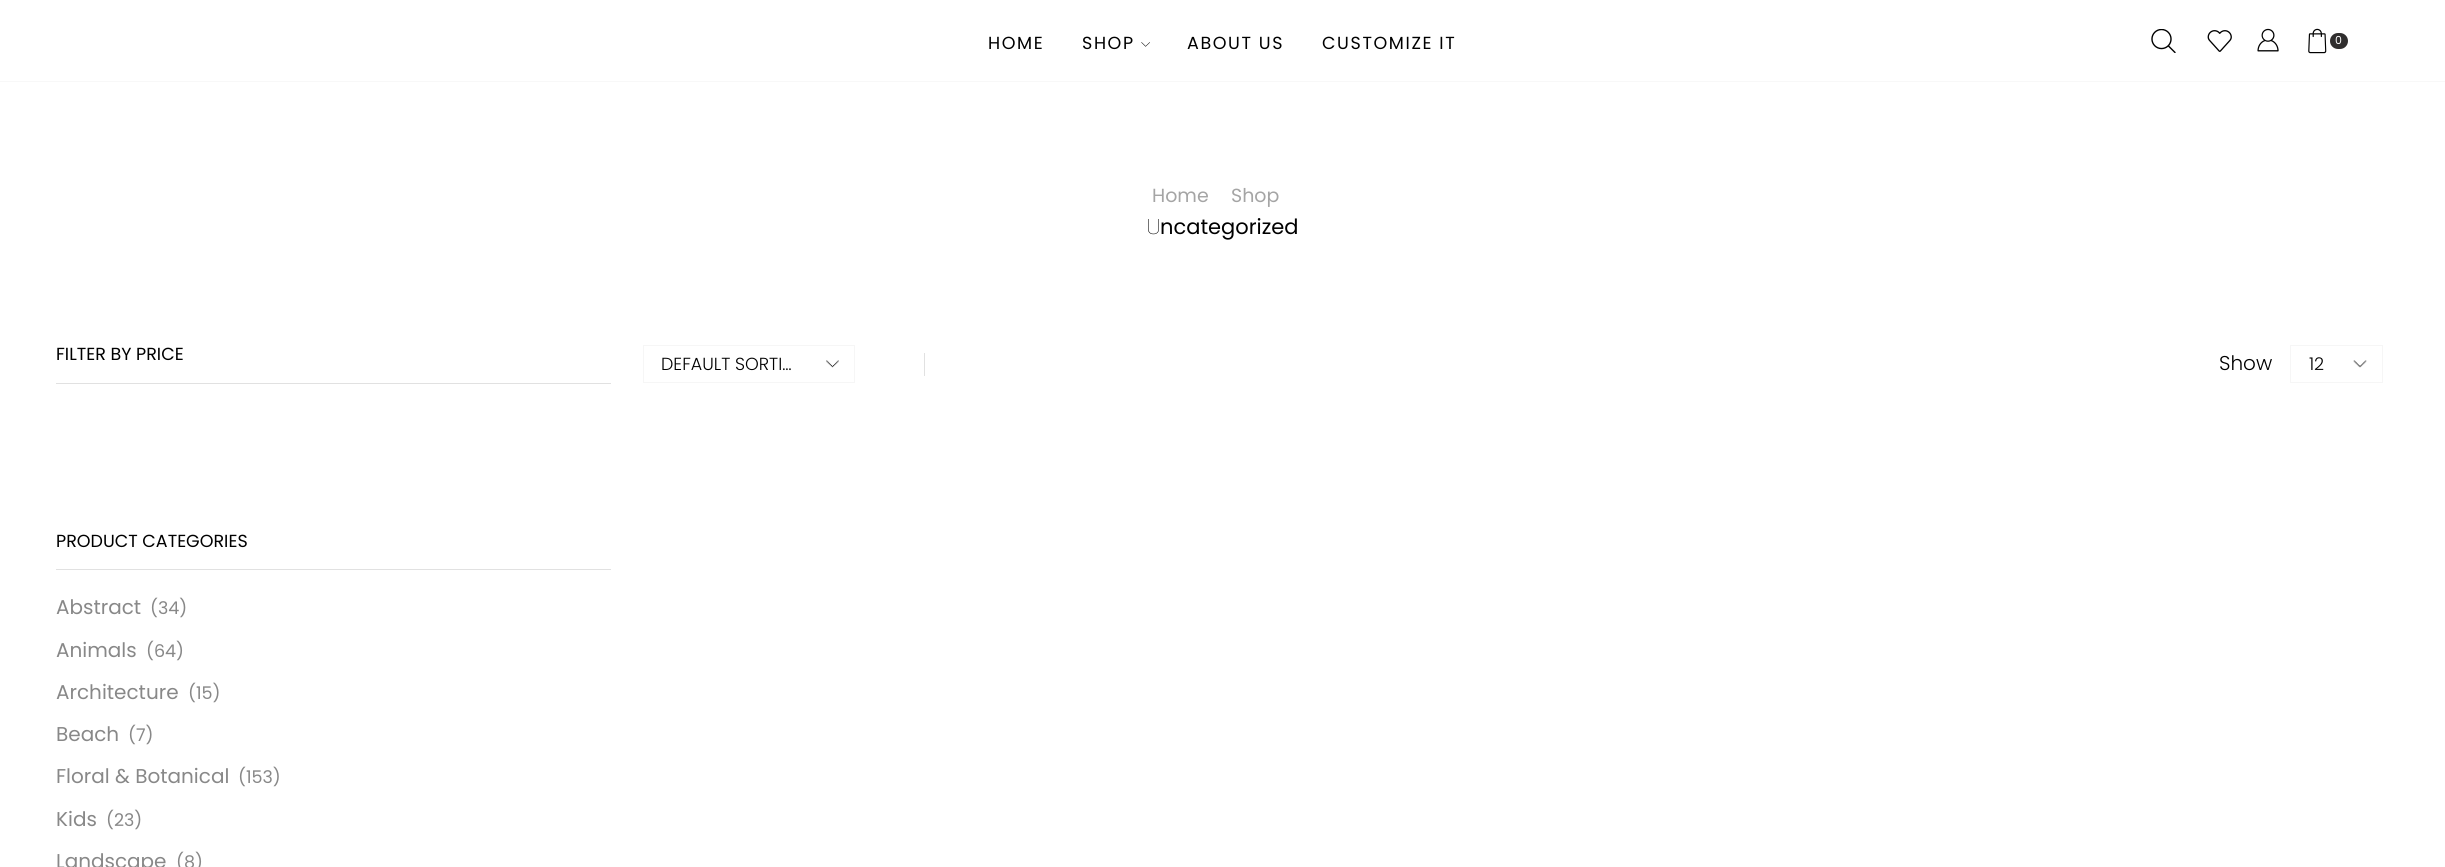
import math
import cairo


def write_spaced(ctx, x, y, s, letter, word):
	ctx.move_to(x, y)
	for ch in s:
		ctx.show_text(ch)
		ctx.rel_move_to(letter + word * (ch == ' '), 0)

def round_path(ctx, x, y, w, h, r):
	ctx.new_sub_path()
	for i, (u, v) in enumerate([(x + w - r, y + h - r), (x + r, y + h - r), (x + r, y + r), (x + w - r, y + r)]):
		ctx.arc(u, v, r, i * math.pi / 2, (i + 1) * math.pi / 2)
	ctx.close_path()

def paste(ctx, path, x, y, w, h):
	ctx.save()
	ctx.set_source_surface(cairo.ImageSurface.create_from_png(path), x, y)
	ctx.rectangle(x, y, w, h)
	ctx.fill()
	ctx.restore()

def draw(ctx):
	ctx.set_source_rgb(1, 1, 1)
	ctx.paint()
	ctx.set_source_rgb(0.969, 0.969, 0.969)
	ctx.rectangle(0, 81, 2445, 1)
	ctx.fill()
	ctx.select_font_face('Poppins')
	ctx.set_font_size(17.5)
	ctx.set_source_rgb(0, 0, 0)
	write_spaced(ctx, 988, 49, 'HOME', 1.6, 0)
	write_spaced(ctx, 1082, 49, 'SHOP', 1.6, 0)
	paste(ctx, 'media/1.png', 1141, 42, 9, 5)
	write_spaced(ctx, 1187, 49, 'ABOUT US', 1.6, 0)
	write_spaced(ctx, 1322, 49, 'CUSTOMIZE IT', 1.6, 0)
	paste(ctx, 'media/2.png', 2151, 29, 25, 24)
	paste(ctx, 'media/3.png', 2207, 30, 25, 22)
	paste(ctx, 'media/4.png', 2257, 28, 22, 24)
	paste(ctx, 'media/5.png', 2308, 28, 19, 26)
	ctx.set_source_rgb(0.188, 0.18, 0.18)
	round_path(ctx, 2330, 33, 18, 16, 8)
	ctx.fill()
	ctx.set_font_size(11)
	ctx.set_source_rgb(1, 1, 1)
	ctx.move_to(2335, 44)
	ctx.show_text('0')
	ctx.set_font_size(19)
	ctx.set_source_rgb(0.647, 0.647, 0.647)
	ctx.move_to(1152, 202)
	ctx.show_text('Home')
	ctx.move_to(1231, 202)
	ctx.show_text('Shop')
	ctx.select_font_face('Noto Sans Thin')
	ctx.set_font_size(21)
	ctx.set_source_rgb(0, 0, 0)
	ctx.move_to(1146, 234)
	ctx.show_text('U')
	ctx.select_font_face('Poppins')
	ctx.move_to(1160, 234)
	ctx.show_text('ncategorized')
	ctx.set_source_rgb(0.882, 0.882, 0.882)
	ctx.rectangle(56, 383, 555, 1)
	ctx.fill()
	ctx.set_font_size(17.5)
	ctx.set_source_rgb(0, 0, 0)
	ctx.move_to(56, 360)
	ctx.show_text('FILTER BY PRICE')
	ctx.set_source_rgb(0.882, 0.882, 0.882)
	ctx.rectangle(56, 569, 555, 1)
	ctx.fill()
	ctx.set_source_rgb(0, 0, 0)
	ctx.move_to(56, 547)
	ctx.show_text('PRODUCT CATEGORIES')
	ctx.set_font_size(20)
	ctx.set_source_rgb(0.533, 0.533, 0.533)
	ctx.move_to(56, 614)
	ctx.show_text('Abstract')
	ctx.set_font_size(17.5)
	ctx.move_to(150, 614)
	ctx.show_text('(34)')
	ctx.set_font_size(20)
	ctx.move_to(56, 657)
	ctx.show_text('Animals')
	ctx.set_font_size(17.5)
	ctx.move_to(146, 657)
	ctx.show_text('(64)')
	ctx.set_font_size(20)
	ctx.move_to(56, 699)
	ctx.show_text('Architecture')
	ctx.set_font_size(17.5)
	ctx.move_to(188, 699)
	ctx.show_text('(15)')
	ctx.set_font_size(20)
	ctx.move_to(56, 741)
	ctx.show_text('Beach')
	ctx.set_font_size(17.5)
	ctx.move_to(128, 741)
	ctx.show_text('(7)')
	ctx.set_font_size(20)
	ctx.move_to(56, 783)
	ctx.show_text('Floral & Botanical')
	ctx.set_font_size(17.5)
	ctx.move_to(238, 783)
	ctx.show_text('(153)')
	ctx.set_font_size(20)
	ctx.move_to(56, 826)
	ctx.show_text('Kids')
	ctx.set_font_size(17.5)
	ctx.move_to(106, 826)
	ctx.show_text('(23)')
	ctx.set_font_size(20)
	ctx.move_to(56, 868)
	ctx.show_text('Landscape')
	ctx.set_font_size(17.5)
	ctx.move_to(176, 868)
	ctx.show_text('(8)')
	paste(ctx, 'media/6.png', 826, 360, 13, 8)
	ctx.rectangle(643.5, 345.5, 211, 37)
	ctx.set_source_rgb(0.961, 0.961, 0.961)
	ctx.set_line_width(1)
	ctx.stroke()
	ctx.select_font_face('Poppins Light')
	ctx.set_source_rgb(0, 0, 0)
	ctx.move_to(661, 370)
	ctx.show_text('DEFAULT SORTI…')
	ctx.set_source_rgb(0.882, 0.882, 0.882)
	ctx.rectangle(924, 353, 1, 23)
	ctx.fill()
	ctx.set_font_size(20)
	ctx.set_source_rgb(0, 0, 0)
	ctx.move_to(2219, 370)
	ctx.show_text('Show')
	paste(ctx, 'media/7.png', 2353, 360, 14, 8)
	ctx.rectangle(2290.5, 345.5, 92, 37)
	ctx.set_source_rgb(0.961, 0.961, 0.961)
	ctx.stroke()
	ctx.set_font_size(17.5)
	ctx.set_source_rgb(0, 0, 0)
	ctx.move_to(2309, 370)
	ctx.show_text('12')


surface = cairo.ImageSurface(cairo.FORMAT_RGB24, 2445, 867)
ctx = cairo.Context(surface)
options = cairo.FontOptions()
options.set_hint_metrics(cairo.HINT_METRICS_OFF)
options.set_hint_style(cairo.HINT_STYLE_NONE)
ctx.set_font_options(options)
ctx.set_miter_limit(4)
draw(ctx)
surface.write_to_png('image.png')
